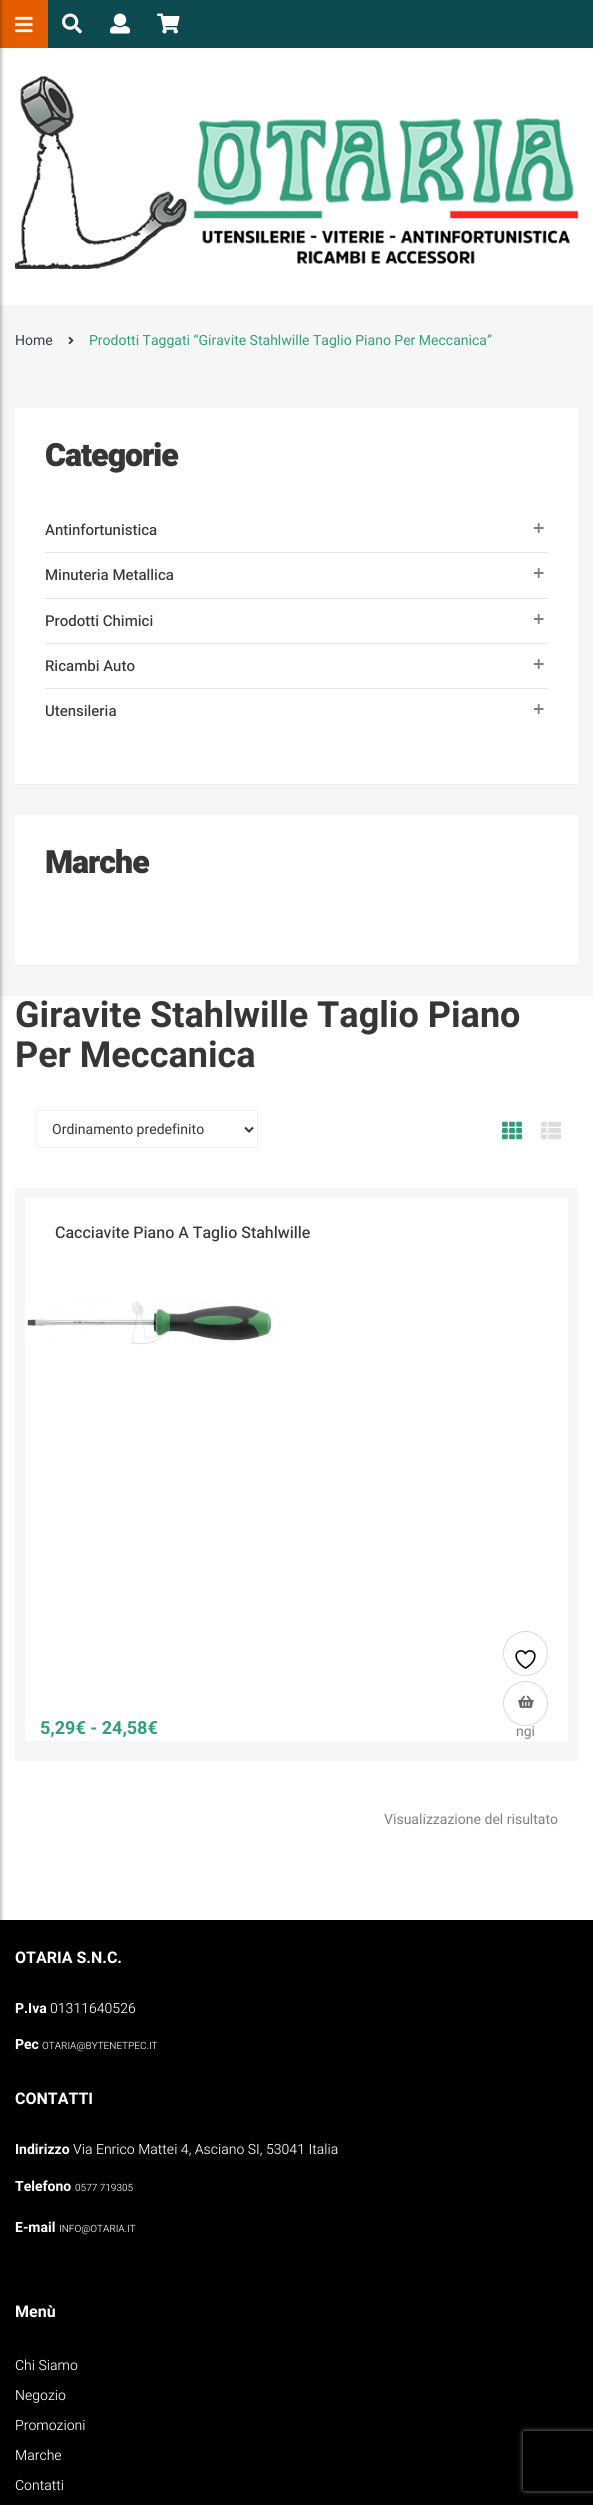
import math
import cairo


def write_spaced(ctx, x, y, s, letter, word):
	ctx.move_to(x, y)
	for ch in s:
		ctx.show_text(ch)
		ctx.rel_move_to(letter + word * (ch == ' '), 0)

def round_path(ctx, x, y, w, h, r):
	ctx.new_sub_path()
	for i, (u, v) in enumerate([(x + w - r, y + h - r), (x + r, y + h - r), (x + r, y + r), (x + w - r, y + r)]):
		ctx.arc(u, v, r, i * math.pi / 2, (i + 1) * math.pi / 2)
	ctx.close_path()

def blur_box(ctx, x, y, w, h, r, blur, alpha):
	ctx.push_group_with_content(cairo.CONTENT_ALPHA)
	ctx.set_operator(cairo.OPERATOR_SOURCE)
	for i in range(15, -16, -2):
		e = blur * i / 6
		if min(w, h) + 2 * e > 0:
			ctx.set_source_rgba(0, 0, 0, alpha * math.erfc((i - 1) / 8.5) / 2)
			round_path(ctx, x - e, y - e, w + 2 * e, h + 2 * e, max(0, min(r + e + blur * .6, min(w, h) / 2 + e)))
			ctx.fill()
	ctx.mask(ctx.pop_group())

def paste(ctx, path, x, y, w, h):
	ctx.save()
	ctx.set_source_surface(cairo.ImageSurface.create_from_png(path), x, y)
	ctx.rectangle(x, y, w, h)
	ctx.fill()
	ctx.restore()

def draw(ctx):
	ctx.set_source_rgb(0.961, 0.961, 0.961)
	ctx.paint()
	ctx.set_source_rgb(0.047, 0.29, 0.31)
	ctx.rectangle(48, 0, 545, 48)
	ctx.fill()
	ctx.set_source_rgb(0.902, 0.365, 0)
	ctx.rectangle(0, 0, 48, 48)
	ctx.fill()
	paste(ctx, 'media/1.png', 15, 16, 18, 17)
	paste(ctx, 'media/2.png', 62, 13, 20, 21)
	paste(ctx, 'media/3.png', 110, 13, 20, 21)
	paste(ctx, 'media/4.png', 157, 13, 23, 21)
	ctx.set_source_rgb(1, 1, 1)
	ctx.rectangle(0, 48, 593, 257)
	ctx.rectangle(0, 996, 593, 924)
	ctx.fill()
	ctx.set_source_rgb(0, 0, 0)
	ctx.rectangle(0, 1920, 593, 585)
	ctx.fill()
	ctx.set_source_rgb(0, 0, 0)
	blur_box(ctx, -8, 0, 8, 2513, 0, 2.5, 0.5)
	paste(ctx, 'media/5.png', 15, 76, 563, 193)
	ctx.select_font_face('Heebo')
	ctx.set_font_size(14)
	ctx.set_source_rgb(0.2, 0.243, 0.282)
	ctx.move_to(15, 345)
	ctx.show_text('Home')
	paste(ctx, 'media/6.png', 68, 336, 6, 9)
	ctx.set_source_rgb(0.204, 0.616, 0.486)
	ctx.move_to(89, 345)
	ctx.show_text('Prodotti Taggati “Giravite Stahlwille Taglio Piano Per Meccanica”')
	ctx.set_source_rgb(1, 1, 1)
	ctx.rectangle(15, 408, 563, 376)
	ctx.fill()
	ctx.set_source_rgb(0.922, 0.922, 0.922)
	ctx.rectangle(15, 784, 563, 1)
	ctx.fill()
	ctx.select_font_face('Heebo Black')
	ctx.set_font_size(32)
	ctx.set_source_rgb(0.212, 0.212, 0.212)
	write_spaced(ctx, 45, 466, 'Categorie', -1, 0)
	ctx.set_source_rgb(0.898, 0.898, 0.898)
	ctx.rectangle(45, 552, 503, 1)
	ctx.fill()
	ctx.select_font_face('Heebo Medium')
	ctx.set_font_size(15)
	ctx.set_source_rgb(0.212, 0.212, 0.212)
	ctx.move_to(45, 535)
	ctx.show_text('Antinfortunistica')
	paste(ctx, 'media/7.png', 533, 523, 11, 10)
	paste(ctx, 'media/8.png', 533, 523, 11, 10)
	ctx.set_source_rgb(0.898, 0.898, 0.898)
	ctx.rectangle(45, 598, 503, 1)
	ctx.fill()
	ctx.set_source_rgb(0.212, 0.212, 0.212)
	ctx.move_to(45, 580)
	ctx.show_text('Minuteria Metallica')
	paste(ctx, 'media/7.png', 533, 568, 11, 10)
	paste(ctx, 'media/8.png', 533, 568, 11, 10)
	ctx.set_source_rgb(0.898, 0.898, 0.898)
	ctx.rectangle(45, 643, 503, 1)
	ctx.fill()
	ctx.set_source_rgb(0.212, 0.212, 0.212)
	ctx.move_to(45, 626)
	ctx.show_text('Prodotti Chimici')
	paste(ctx, 'media/7.png', 533, 614, 11, 10)
	paste(ctx, 'media/8.png', 533, 614, 11, 10)
	ctx.set_source_rgb(0.898, 0.898, 0.898)
	ctx.rectangle(45, 688, 503, 1)
	ctx.fill()
	ctx.set_source_rgb(0.212, 0.212, 0.212)
	ctx.move_to(45, 671)
	ctx.show_text('Ricambi Auto')
	paste(ctx, 'media/7.png', 533, 659, 11, 10)
	paste(ctx, 'media/8.png', 533, 659, 11, 10)
	ctx.move_to(45, 716)
	ctx.show_text('Utensileria')
	paste(ctx, 'media/7.png', 533, 704, 11, 10)
	paste(ctx, 'media/8.png', 533, 704, 11, 10)
	ctx.set_source_rgb(1, 1, 1)
	ctx.rectangle(15, 815, 563, 150)
	ctx.fill()
	ctx.set_source_rgb(0.922, 0.922, 0.922)
	ctx.rectangle(15, 965, 563, 1)
	ctx.fill()
	ctx.select_font_face('Heebo Black')
	ctx.set_font_size(32)
	ctx.set_source_rgb(0.212, 0.212, 0.212)
	write_spaced(ctx, 45, 873, 'Marche', -1, 0)
	ctx.select_font_face('Heebo', cairo.FONT_SLANT_NORMAL, cairo.FONT_WEIGHT_BOLD)
	ctx.set_font_size(36)
	ctx.move_to(15, 1027)
	ctx.show_text('Giravite Stahlwille Taglio Piano')
	ctx.move_to(15, 1067)
	ctx.show_text('Per Meccanica')
	ctx.rectangle(35.5, 1110.5, 222, 37)
	ctx.set_source_rgb(0.945, 0.945, 0.945)
	ctx.set_line_width(1)
	ctx.stroke()
	ctx.new_path()
	ctx.move_to(245, 1127.5)
	ctx.line_to(249, 1131.5)
	ctx.line_to(253, 1127.5)
	ctx.set_source_rgb(0.2, 0.2, 0.2)
	ctx.set_line_width(2)
	ctx.stroke()
	ctx.select_font_face('Heebo')
	ctx.set_font_size(14)
	ctx.set_source_rgb(0.212, 0.212, 0.212)
	ctx.move_to(52, 1134)
	ctx.show_text('Ordinamento predefinito')
	paste(ctx, 'media/9.png', 502, 1121, 20, 19)
	paste(ctx, 'media/10.png', 541, 1121, 20, 19)
	ctx.set_source_rgb(0.961, 0.961, 0.961)
	ctx.rectangle(15, 1188, 563, 573)
	ctx.fill()
	ctx.set_source_rgb(1, 1, 1)
	ctx.rectangle(25, 1198, 543, 543)
	ctx.fill()
	ctx.select_font_face('Heebo Medium')
	ctx.set_font_size(16)
	ctx.set_source_rgb(0.212, 0.212, 0.212)
	ctx.move_to(55, 1238)
	ctx.show_text('Cacciavite Piano A Taglio Stahlwille')
	paste(ctx, 'media/11.png', 25, 1302, 250, 46)
	ctx.select_font_face('Heebo')
	ctx.set_font_size(14)
	ctx.set_source_rgb(0.502, 0.502, 0.502)
	ctx.move_to(516, 1736)
	ctx.show_text('ngi')
	ctx.new_path()
	ctx.arc(525.5, 1703.5, 22, 0, 2 * math.pi)
	ctx.set_source_rgb(0.851, 0.851, 0.851)
	ctx.set_line_width(1)
	ctx.stroke()
	paste(ctx, 'media/12.png', 518, 1695, 16, 13)
	ctx.arc(525.5, 1653.5, 22, 0, 2 * math.pi)
	ctx.stroke()
	paste(ctx, 'media/13.png', 515, 1650, 21, 19)
	ctx.select_font_face('Heebo', cairo.FONT_SLANT_NORMAL, cairo.FONT_WEIGHT_BOLD)
	ctx.set_font_size(18)
	ctx.set_source_rgb(0.204, 0.616, 0.486)
	ctx.move_to(40, 1734)
	ctx.show_text('5,29€ - 24,58€')
	ctx.select_font_face('Heebo')
	ctx.set_font_size(14)
	ctx.set_source_rgb(0.502, 0.502, 0.502)
	ctx.move_to(384, 1824)
	ctx.show_text('Visualizzazione del risultato')
	ctx.select_font_face('Heebo', cairo.FONT_SLANT_NORMAL, cairo.FONT_WEIGHT_BOLD)
	ctx.set_font_size(16)
	ctx.set_source_rgb(1, 1, 1)
	ctx.move_to(15, 1963)
	ctx.show_text('OTARIA S.N.C.')
	ctx.set_font_size(14)
	ctx.move_to(15, 2013)
	ctx.show_text('P.Iva')
	ctx.select_font_face('Heebo Light')
	ctx.move_to(50, 2013)
	ctx.show_text('01311640526')
	ctx.select_font_face('Heebo', cairo.FONT_SLANT_NORMAL, cairo.FONT_WEIGHT_BOLD)
	ctx.move_to(15, 2049)
	ctx.show_text('Pec')
	ctx.select_font_face('Heebo Light')
	ctx.set_font_size(10)
	ctx.move_to(42, 2049)
	ctx.show_text('OTARIA@BYTENETPEC.IT')
	ctx.select_font_face('Heebo', cairo.FONT_SLANT_NORMAL, cairo.FONT_WEIGHT_BOLD)
	ctx.set_font_size(16)
	ctx.move_to(15, 2104)
	ctx.show_text('CONTATTI')
	ctx.set_font_size(14)
	ctx.move_to(15, 2154)
	ctx.show_text('Indirizzo')
	ctx.select_font_face('Heebo Light')
	ctx.move_to(73, 2154)
	ctx.show_text('Via Enrico Mattei 4, Asciano SI, 53041 Italia')
	ctx.select_font_face('Heebo', cairo.FONT_SLANT_NORMAL, cairo.FONT_WEIGHT_BOLD)
	ctx.move_to(15, 2191)
	ctx.show_text('Telefono')
	ctx.select_font_face('Heebo Light')
	ctx.set_font_size(10)
	ctx.move_to(75, 2191)
	ctx.show_text('0577 719305')
	ctx.select_font_face('Heebo', cairo.FONT_SLANT_NORMAL, cairo.FONT_WEIGHT_BOLD)
	ctx.set_font_size(14)
	ctx.move_to(15, 2232)
	ctx.show_text('E-mail')
	ctx.select_font_face('Heebo Light')
	ctx.set_font_size(10)
	ctx.move_to(59, 2232)
	ctx.show_text('INFO@OTARIA.IT')
	ctx.select_font_face('Heebo', cairo.FONT_SLANT_NORMAL, cairo.FONT_WEIGHT_BOLD)
	ctx.set_font_size(16)
	ctx.move_to(15, 2317)
	ctx.show_text('Menù')
	ctx.select_font_face('Heebo Light')
	ctx.set_font_size(14)
	for x, y, s in [
		(15, 2370, 'Chi Siamo'),
		(15, 2400, 'Negozio'),
		(15, 2430, 'Promozioni'),
		(15, 2460, 'Marche'),
		(15, 2490, 'Contatti'),
	]:
		ctx.move_to(x, y)
		ctx.show_text(s)
	ctx.save()
	ctx.set_fill_rule(cairo.FILL_RULE_EVEN_ODD)
	ctx.new_path()
	ctx.move_to(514, 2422)
	ctx.line_to(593, 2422)
	ctx.line_to(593, 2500)
	ctx.line_to(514, 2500)
	ctx.close_path()
	ctx.move_to(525, 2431)
	ctx.line_to(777, 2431)
	ctx.curve_to(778, 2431, 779, 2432, 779, 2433)
	ctx.line_to(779, 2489)
	ctx.curve_to(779, 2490, 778, 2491, 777, 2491)
	ctx.line_to(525, 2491)
	ctx.curve_to(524, 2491, 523, 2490, 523, 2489)
	ctx.line_to(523, 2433)
	ctx.curve_to(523, 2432, 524, 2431, 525, 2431)
	ctx.close_path()
	ctx.clip()
	ctx.set_source_rgb(0.502, 0.502, 0.502)
	blur_box(ctx, 523, 2431, 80, 60, 2, 2.5, 1)
	ctx.restore()


surface = cairo.ImageSurface(cairo.FORMAT_RGB24, 593, 2505)
ctx = cairo.Context(surface)
options = cairo.FontOptions()
options.set_hint_metrics(cairo.HINT_METRICS_OFF)
options.set_hint_style(cairo.HINT_STYLE_NONE)
ctx.set_font_options(options)
ctx.set_miter_limit(4)
draw(ctx)
surface.write_to_png('image.png')
